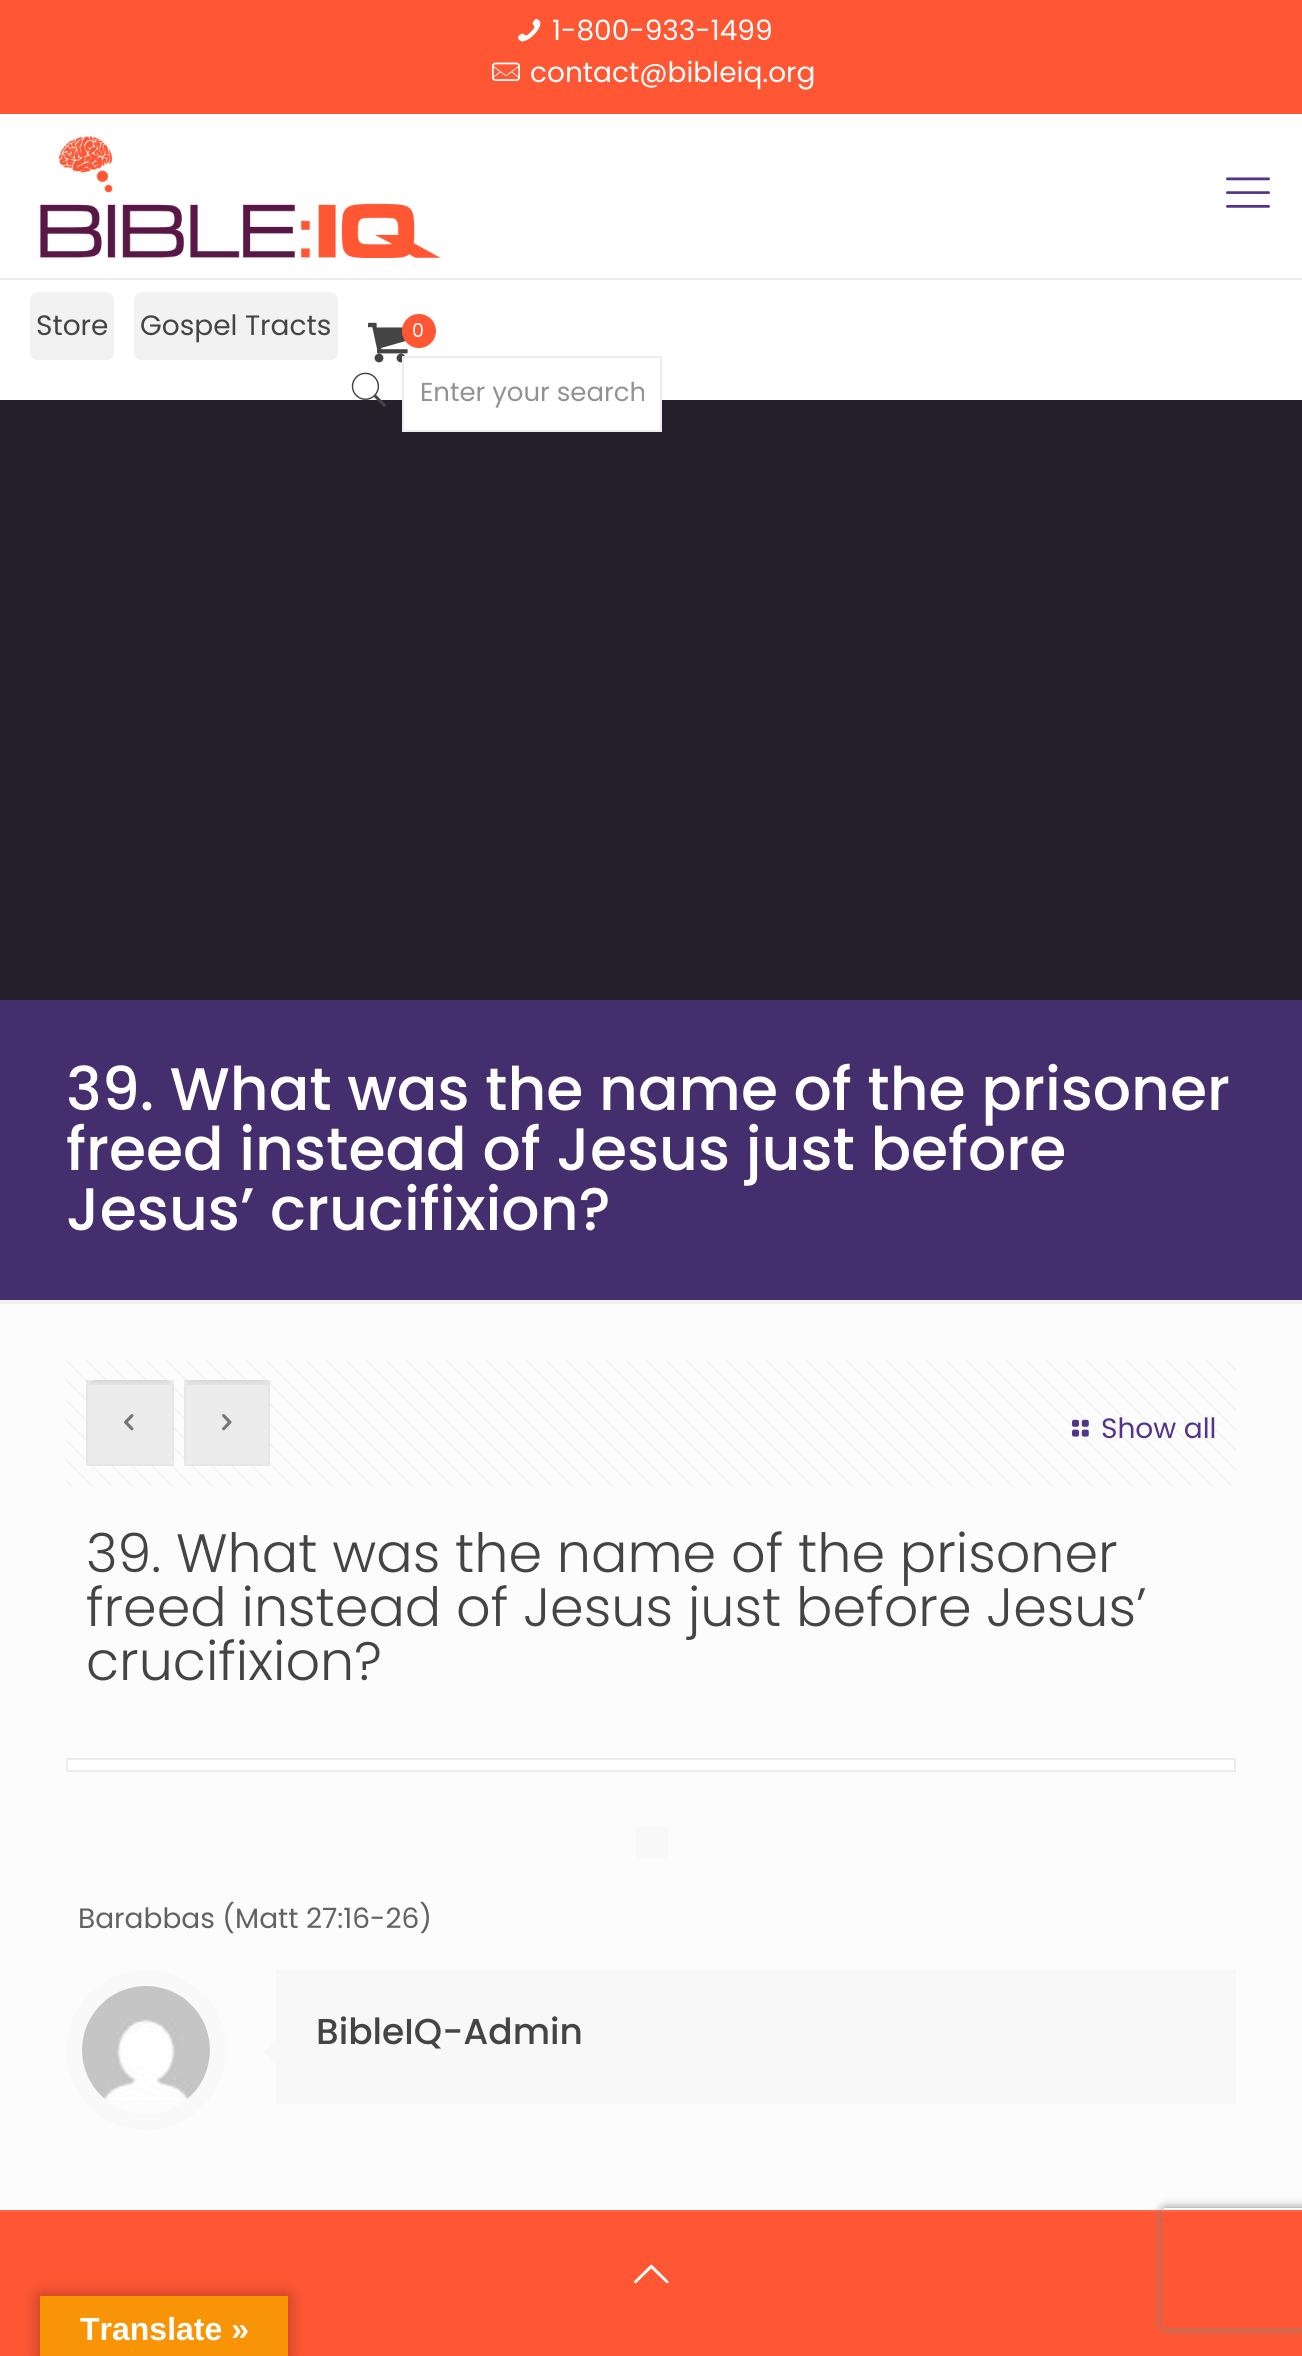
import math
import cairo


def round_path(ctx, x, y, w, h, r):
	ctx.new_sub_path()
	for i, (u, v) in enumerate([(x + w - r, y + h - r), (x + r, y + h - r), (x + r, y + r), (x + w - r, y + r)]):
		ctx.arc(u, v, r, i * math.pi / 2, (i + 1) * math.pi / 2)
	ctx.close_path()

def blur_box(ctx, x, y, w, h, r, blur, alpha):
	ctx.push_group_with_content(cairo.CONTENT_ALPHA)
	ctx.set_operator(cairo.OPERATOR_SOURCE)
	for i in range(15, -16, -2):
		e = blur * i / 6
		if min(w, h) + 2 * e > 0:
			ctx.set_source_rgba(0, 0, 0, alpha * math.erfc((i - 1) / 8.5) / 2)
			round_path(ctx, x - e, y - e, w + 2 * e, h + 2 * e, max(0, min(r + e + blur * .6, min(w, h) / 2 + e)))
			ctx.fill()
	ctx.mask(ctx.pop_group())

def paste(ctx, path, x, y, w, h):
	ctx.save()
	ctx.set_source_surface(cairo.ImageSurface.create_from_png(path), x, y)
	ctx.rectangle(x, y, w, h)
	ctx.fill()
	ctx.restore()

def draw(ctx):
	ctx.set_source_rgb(0.988, 0.988, 0.988)
	ctx.paint()
	ctx.set_source_rgb(0.137, 0.122, 0.169)
	ctx.rectangle(0, 400, 1302, 600)
	ctx.fill()
	ctx.set_source_rgb(1, 0.341, 0.2)
	ctx.rectangle(0, 0, 1302, 114)
	ctx.fill()
	paste(ctx, 'media/1.png', 518, 19, 23, 23)
	ctx.select_font_face('Poppins')
	ctx.set_font_size(28)
	ctx.set_source_rgb(1, 1, 1)
	ctx.move_to(552, 40)
	ctx.show_text('1-800-933-1499')
	paste(ctx, 'media/2.png', 492, 62, 28, 19)
	ctx.move_to(530, 82)
	ctx.show_text('contact@bibleiq.org')
	ctx.rectangle(0, 114, 1302, 286)
	ctx.fill()
	ctx.set_source_rgb(0.922, 0.922, 0.922)
	ctx.rectangle(0, 278, 1302, 2)
	ctx.fill()
	paste(ctx, 'media/3.png', 40, 136, 400, 122)
	paste(ctx, 'media/4.png', 1226, 177, 44, 31)
	ctx.set_source_rgb(0.949, 0.949, 0.949)
	round_path(ctx, 30, 292, 84, 68, 8)
	ctx.fill()
	ctx.set_source_rgb(0.267, 0.267, 0.267)
	ctx.move_to(36, 335)
	ctx.show_text('Store')
	ctx.set_source_rgb(0.949, 0.949, 0.949)
	round_path(ctx, 134, 292, 204, 68, 8)
	ctx.fill()
	ctx.set_source_rgb(0.267, 0.267, 0.267)
	ctx.move_to(140, 335)
	ctx.show_text('Gospel Tracts')
	paste(ctx, 'media/5.png', 368, 322, 40, 41)
	ctx.set_source_rgb(1, 0.341, 0.2)
	ctx.arc(419, 331, 17, 0, 2 * math.pi)
	ctx.fill()
	ctx.set_font_size(19)
	ctx.set_source_rgb(1, 1, 1)
	ctx.move_to(412, 337)
	ctx.show_text('0')
	paste(ctx, 'media/6.png', 351, 372, 35, 35)
	ctx.rectangle(403, 357, 258, 74)
	ctx.fill_preserve()
	ctx.set_source_rgb(0.922, 0.922, 0.922)
	ctx.stroke()
	ctx.save()
	ctx.rectangle(420, 374, 224, 40)
	ctx.clip()
	ctx.set_font_size(26)
	ctx.set_source_rgb(0.573, 0.573, 0.573)
	ctx.move_to(420, 401)
	ctx.show_text('Enter your search')
	ctx.restore()
	ctx.set_source_rgb(0.271, 0.18, 0.431)
	ctx.rectangle(0, 1000, 1302, 300)
	ctx.fill()
	ctx.select_font_face('Poppins Medium')
	ctx.set_font_size(60)
	ctx.set_source_rgb(1, 1, 1)
	for x, y, s in [
		(66, 1110, '39. What was the name of the prisoner'),
		(66, 1170, 'freed instead of Jesus just before'),
		(66, 1230, 'Jesus’ crucifixion?'),
	]:
		ctx.move_to(x, y)
		ctx.show_text(s)
	ctx.set_source_rgb(0.937, 0.937, 0.937)
	ctx.rectangle(0, 1300, 1302, 4)
	ctx.fill()
	paste(ctx, 'media/7.png', 66, 1360, 1170, 126)
	ctx.set_source_rgb(0.969, 0.969, 0.969)
	round_path(ctx, 86, 1380, 88, 86, 10)
	ctx.fill()
	paste(ctx, 'media/8.png', 88, 1380, 84, 5)
	ctx.rectangle(87, 1381, 86, 84)
	ctx.set_source_rgba(0, 0, 0, 0.03)
	ctx.stroke()
	ctx.set_source_rgba(0, 0, 0, 0.05)
	ctx.rectangle(86, 1380, 88, 86)
	ctx.fill()
	paste(ctx, 'media/9.png', 124, 1414, 10, 17)
	ctx.set_source_rgb(0.969, 0.969, 0.969)
	round_path(ctx, 184, 1380, 86, 86, 10)
	ctx.fill()
	paste(ctx, 'media/10.png', 186, 1380, 82, 5)
	ctx.rectangle(185, 1381, 84, 84)
	ctx.set_source_rgba(0, 0, 0, 0.03)
	ctx.stroke()
	ctx.set_source_rgba(0, 0, 0, 0.05)
	ctx.rectangle(184, 1380, 86, 86)
	ctx.fill()
	paste(ctx, 'media/11.png', 222, 1414, 10, 17)
	paste(ctx, 'media/12.png', 1072, 1419, 17, 18)
	ctx.select_font_face('Poppins')
	ctx.set_font_size(28)
	ctx.set_source_rgb(0.325, 0.204, 0.545)
	ctx.move_to(1101, 1438)
	ctx.show_text('Show all')
	ctx.select_font_face('Poppins Light')
	ctx.set_font_size(54)
	ctx.set_source_rgb(0.267, 0.267, 0.267)
	for x, y, s in [
		(86, 1572, '39. What was the name of the prisoner'),
		(86, 1626, 'freed instead of Jesus just before Jesus’'),
		(86, 1680, 'crucifixion?'),
	]:
		ctx.move_to(x, y)
		ctx.show_text(s)
	ctx.set_source_rgb(1, 1, 1)
	ctx.rectangle(67, 1759, 1168, 12)
	ctx.fill_preserve()
	ctx.set_source_rgb(0.922, 0.922, 0.922)
	ctx.stroke()
	ctx.set_source_rgb(0.973, 0.973, 0.973)
	ctx.rectangle(636, 1826, 32, 32)
	ctx.fill()
	ctx.select_font_face('Poppins')
	ctx.set_font_size(28)
	ctx.set_source_rgb(0.384, 0.384, 0.384)
	ctx.move_to(78, 1928)
	ctx.show_text('Barabbas (Matt 27:16-26)')
	ctx.new_path()
	ctx.arc(146, 2050, 72, 0, 2 * math.pi)
	ctx.set_source_rgb(0.973, 0.973, 0.973)
	ctx.set_line_width(16)
	ctx.stroke()
	paste(ctx, 'media/13.png', 82, 1986, 128, 114)
	ctx.set_source_rgb(0.969, 0.969, 0.969)
	ctx.rectangle(276, 1970, 960, 134)
	ctx.fill()
	ctx.select_font_face('Poppins Medium')
	ctx.set_font_size(36)
	ctx.set_source_rgb(0.267, 0.267, 0.267)
	ctx.move_to(316, 2044)
	ctx.show_text('BibleIQ-Admin')
	ctx.set_source_rgb(0.969, 0.969, 0.969)
	ctx.new_path()
	ctx.move_to(276, 2040)
	ctx.line_to(276, 2064)
	ctx.line_to(264, 2052)
	ctx.close_path()
	ctx.fill()
	ctx.set_source_rgb(1, 0.341, 0.2)
	ctx.rectangle(0, 2212, 1302, 144)
	ctx.fill()
	ctx.set_source_rgb(1, 0.408, 0.278)
	ctx.rectangle(0, 2210, 1302, 2)
	ctx.fill()
	paste(ctx, 'media/14.png', 634, 2264, 35, 20)
	ctx.set_source_rgb(0, 0, 0)
	blur_box(ctx, 40, 2296, 248, 60, 0, 9, 0.3)
	ctx.set_source_rgb(0.973, 0.58, 0.024)
	ctx.rectangle(40, 2296, 248, 60)
	ctx.fill()
	ctx.select_font_face('Liberation Sans', cairo.FONT_SLANT_NORMAL, cairo.FONT_WEIGHT_BOLD)
	ctx.set_font_size(32)
	ctx.set_source_rgb(1, 1, 1)
	ctx.move_to(80, 2340)
	ctx.show_text('Translate »')
	ctx.save()
	ctx.set_fill_rule(cairo.FILL_RULE_EVEN_ODD)
	ctx.new_path()
	ctx.move_to(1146, 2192)
	ctx.line_to(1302, 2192)
	ctx.line_to(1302, 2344)
	ctx.line_to(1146, 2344)
	ctx.close_path()
	ctx.move_to(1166, 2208)
	ctx.line_to(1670, 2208)
	ctx.curve_to(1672, 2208, 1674, 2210, 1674, 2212)
	ctx.line_to(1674, 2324)
	ctx.curve_to(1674, 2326, 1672, 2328, 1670, 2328)
	ctx.line_to(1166, 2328)
	ctx.curve_to(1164, 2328, 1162, 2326, 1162, 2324)
	ctx.line_to(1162, 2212)
	ctx.curve_to(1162, 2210, 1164, 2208, 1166, 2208)
	ctx.close_path()
	ctx.clip()
	ctx.set_source_rgb(0.502, 0.502, 0.502)
	blur_box(ctx, 1162, 2208, 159, 120, 4, 5, 1)
	ctx.restore()


surface = cairo.ImageSurface(cairo.FORMAT_RGB24, 1302, 2356)
ctx = cairo.Context(surface)
options = cairo.FontOptions()
options.set_hint_metrics(cairo.HINT_METRICS_OFF)
options.set_hint_style(cairo.HINT_STYLE_NONE)
ctx.set_font_options(options)
ctx.set_miter_limit(4)
draw(ctx)
surface.write_to_png('image.png')
